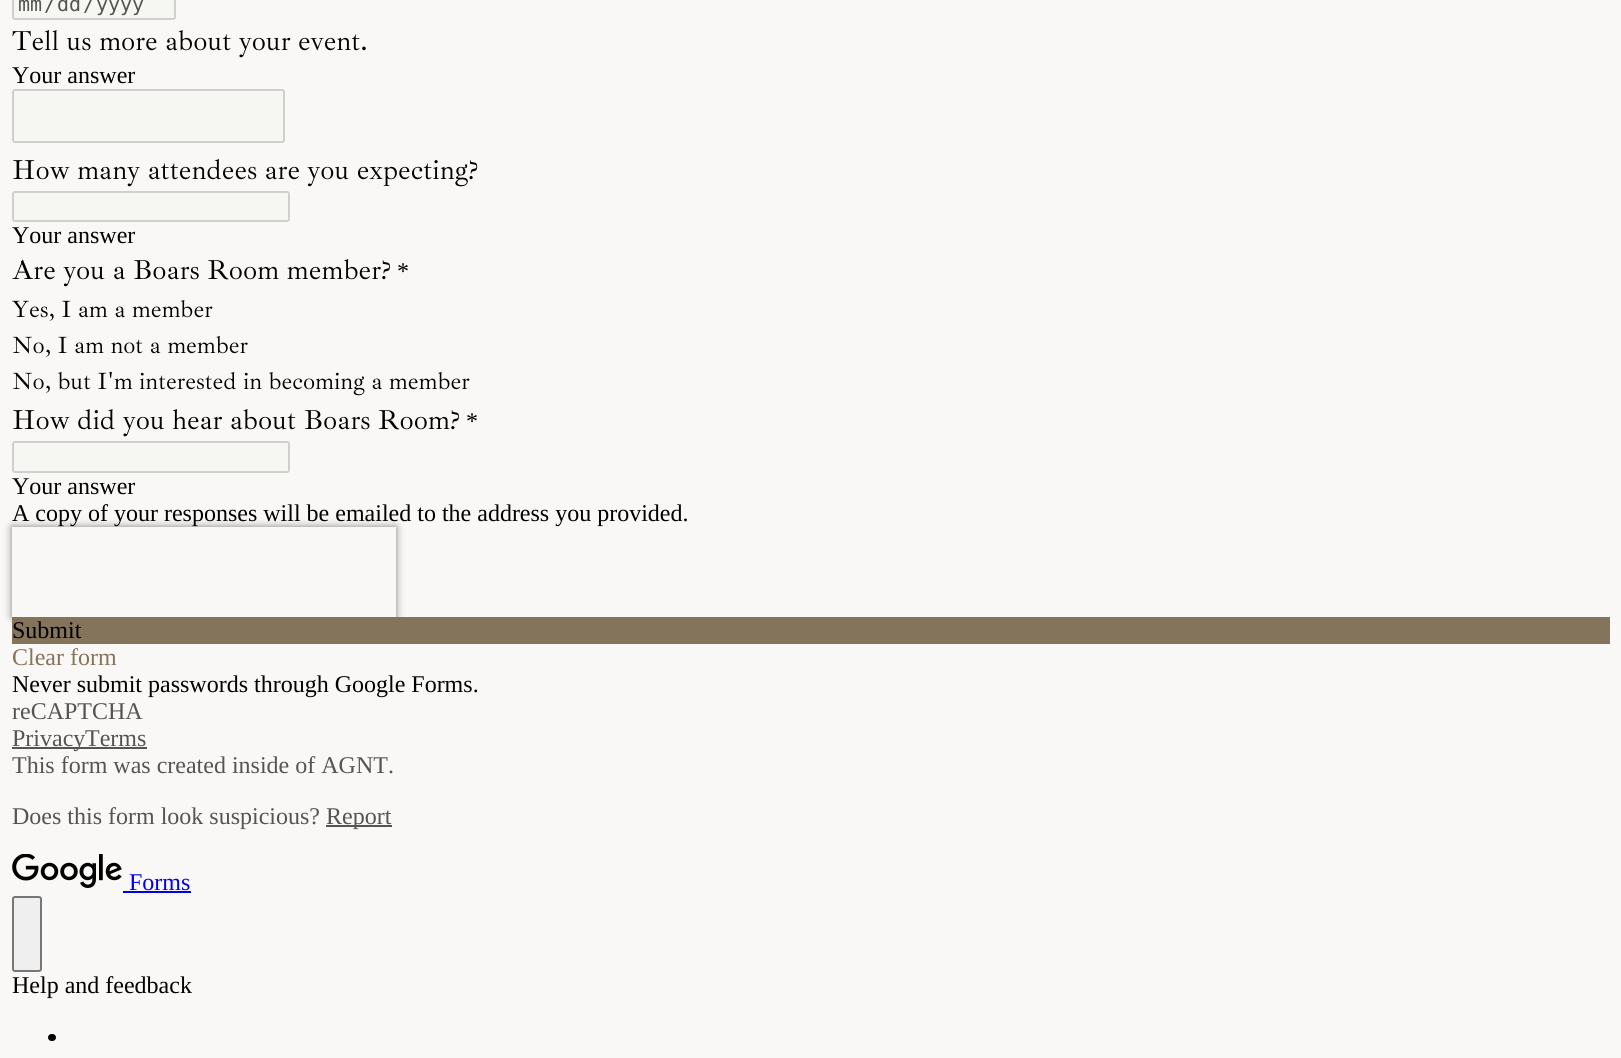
import math
import cairo


def round_path(ctx, x, y, w, h, r):
	ctx.new_sub_path()
	for i, (u, v) in enumerate([(x + w - r, y + h - r), (x + r, y + h - r), (x + r, y + r), (x + w - r, y + r)]):
		ctx.arc(u, v, r, i * math.pi / 2, (i + 1) * math.pi / 2)
	ctx.close_path()

def blur_box(ctx, x, y, w, h, r, blur, alpha):
	ctx.push_group_with_content(cairo.CONTENT_ALPHA)
	ctx.set_operator(cairo.OPERATOR_SOURCE)
	for i in range(15, -16, -2):
		e = blur * i / 6
		if min(w, h) + 2 * e > 0:
			ctx.set_source_rgba(0, 0, 0, alpha * math.erfc((i - 1) / 8.5) / 2)
			round_path(ctx, x - e, y - e, w + 2 * e, h + 2 * e, max(0, min(r + e + blur * .6, min(w, h) / 2 + e)))
			ctx.fill()
	ctx.mask(ctx.pop_group())

def paste(ctx, path, x, y, w, h):
	ctx.save()
	ctx.set_source_surface(cairo.ImageSurface.create_from_png(path), x, y)
	ctx.rectangle(x, y, w, h)
	ctx.fill()
	ctx.restore()

def draw(ctx):
	ctx.set_source_rgb(0.973, 0.969, 0.961)
	ctx.paint()
	ctx.set_source_rgb(0.961, 0.961, 0.953)
	round_path(ctx, 13, -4, 162, 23, 2)
	ctx.fill_preserve()
	ctx.set_source_rgb(0.812, 0.812, 0.808)
	ctx.stroke()
	ctx.select_font_face('DejaVu Sans Mono')
	ctx.set_font_size(20)
	ctx.set_source_rgb(0.329, 0.329, 0.325)
	for x, y, s in [
		(18, 11, 'mm'),
		(44, 11, '/'),
		(57, 11, 'dd'),
		(83, 11, '/'),
		(96, 11, 'yyyy'),
	]:
		ctx.move_to(x, y)
		ctx.show_text(s)
	ctx.select_font_face('Ibarra Real Nova')
	ctx.set_font_size(28)
	ctx.set_source_rgb(0, 0, 0)
	ctx.move_to(12, 50)
	ctx.show_text('Tell us more about your event.')
	ctx.select_font_face('Liberation Serif')
	ctx.set_font_size(24)
	ctx.move_to(12, 83)
	ctx.show_text('Your answer')
	ctx.set_source_rgb(0.961, 0.961, 0.953)
	round_path(ctx, 13, 90, 271, 52, 2)
	ctx.fill_preserve()
	ctx.set_source_rgb(0.812, 0.812, 0.808)
	ctx.stroke()
	ctx.select_font_face('Ibarra Real Nova')
	ctx.set_font_size(28)
	ctx.set_source_rgb(0, 0, 0)
	ctx.move_to(12, 179)
	ctx.show_text('How many attendees are you expecting?')
	ctx.set_source_rgb(0.961, 0.961, 0.953)
	round_path(ctx, 13, 192, 276, 29, 2)
	ctx.fill_preserve()
	ctx.set_source_rgb(0.812, 0.812, 0.808)
	ctx.stroke()
	ctx.select_font_face('Liberation Serif')
	ctx.set_font_size(24)
	ctx.set_source_rgb(0, 0, 0)
	ctx.move_to(12, 243)
	ctx.show_text('Your answer')
	ctx.select_font_face('Ibarra Real Nova')
	ctx.set_font_size(28)
	ctx.move_to(12, 279)
	ctx.show_text('Are you a Boars Room member?')
	ctx.select_font_face('Liberation Serif')
	ctx.set_font_size(24)
	ctx.move_to(397, 279)
	ctx.show_text('*')
	ctx.select_font_face('Ibarra Real Nova')
	for x, y, s in [
		(12, 317, 'Yes, I am a member'),
		(12, 353, 'No, I am not a member'),
		(12, 389, 'No, but I\'m interested in becoming a member'),
	]:
		ctx.move_to(x, y)
		ctx.show_text(s)
	ctx.set_font_size(28)
	ctx.move_to(12, 429)
	ctx.show_text('How did you hear about Boars Room?')
	ctx.select_font_face('Liberation Serif')
	ctx.set_font_size(24)
	ctx.move_to(466, 429)
	ctx.show_text('*')
	ctx.set_source_rgb(0.961, 0.961, 0.953)
	round_path(ctx, 13, 442, 276, 30, 2)
	ctx.fill_preserve()
	ctx.set_source_rgb(0.812, 0.812, 0.808)
	ctx.stroke()
	ctx.set_source_rgb(0, 0, 0)
	ctx.move_to(12, 494)
	ctx.show_text('Your answer')
	ctx.save()
	ctx.set_fill_rule(cairo.FILL_RULE_EVEN_ODD)
	ctx.new_path()
	ctx.move_to(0, 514)
	ctx.line_to(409, 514)
	ctx.line_to(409, 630)
	ctx.line_to(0, 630)
	ctx.close_path()
	ctx.move_to(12, 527)
	ctx.line_to(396, 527)
	ctx.line_to(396, 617)
	ctx.line_to(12, 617)
	ctx.close_path()
	ctx.clip()
	ctx.set_source_rgb(0.502, 0.502, 0.502)
	blur_box(ctx, 12, 527, 384, 90, 0, 4, 1)
	ctx.restore()
	ctx.move_to(12, 521)
	ctx.show_text('A copy of your responses will be emailed to the address you provided.')
	ctx.set_source_rgb(0.522, 0.455, 0.361)
	ctx.rectangle(12, 617, 1598, 27)
	ctx.fill()
	ctx.set_source_rgb(0, 0, 0)
	ctx.move_to(12, 638)
	ctx.show_text('Submit')
	ctx.set_source_rgb(0.522, 0.455, 0.361)
	ctx.move_to(12, 665)
	ctx.show_text('Clear form')
	ctx.set_source_rgb(0, 0, 0)
	ctx.move_to(12, 692)
	ctx.show_text('Never submit passwords through Google Forms.')
	ctx.set_source_rgb(0.329, 0.329, 0.325)
	ctx.move_to(12, 719)
	ctx.show_text('reCAPTCHA')
	ctx.rectangle(12, 747, 135, 2)
	ctx.fill()
	for x, y, s in [
		(12, 746, 'Privacy'),
		(85, 746, 'Terms'),
		(12, 773, 'This form was created inside of AGNT.'),
		(12, 824, 'Does this form look suspicious?'),
	]:
		ctx.move_to(x, y)
		ctx.show_text(s)
	ctx.rectangle(326, 825, 66, 2)
	ctx.fill()
	ctx.move_to(326, 824)
	ctx.show_text('Report')
	paste(ctx, 'media/1.png', 12, 854, 110, 34)
	ctx.set_source_rgb(0, 0, 0.933)
	ctx.move_to(129, 890)
	ctx.show_text('Forms')
	ctx.rectangle(123, 891, 68, 2)
	ctx.fill()
	ctx.set_source_rgb(0.937, 0.937, 0.937)
	round_path(ctx, 13, 897, 28, 74, 2)
	ctx.fill_preserve()
	ctx.set_source_rgb(0.463, 0.463, 0.463)
	ctx.stroke()
	ctx.set_source_rgb(0, 0, 0)
	ctx.move_to(12, 993)
	ctx.show_text('Help and feedback')
	round_path(ctx, 48, 1034, 8, 7, 3.5)
	ctx.fill()


surface = cairo.ImageSurface(cairo.FORMAT_RGB24, 1621, 1058)
ctx = cairo.Context(surface)
options = cairo.FontOptions()
options.set_hint_metrics(cairo.HINT_METRICS_OFF)
options.set_hint_style(cairo.HINT_STYLE_NONE)
ctx.set_font_options(options)
ctx.set_miter_limit(4)
draw(ctx)
surface.write_to_png('image.png')
